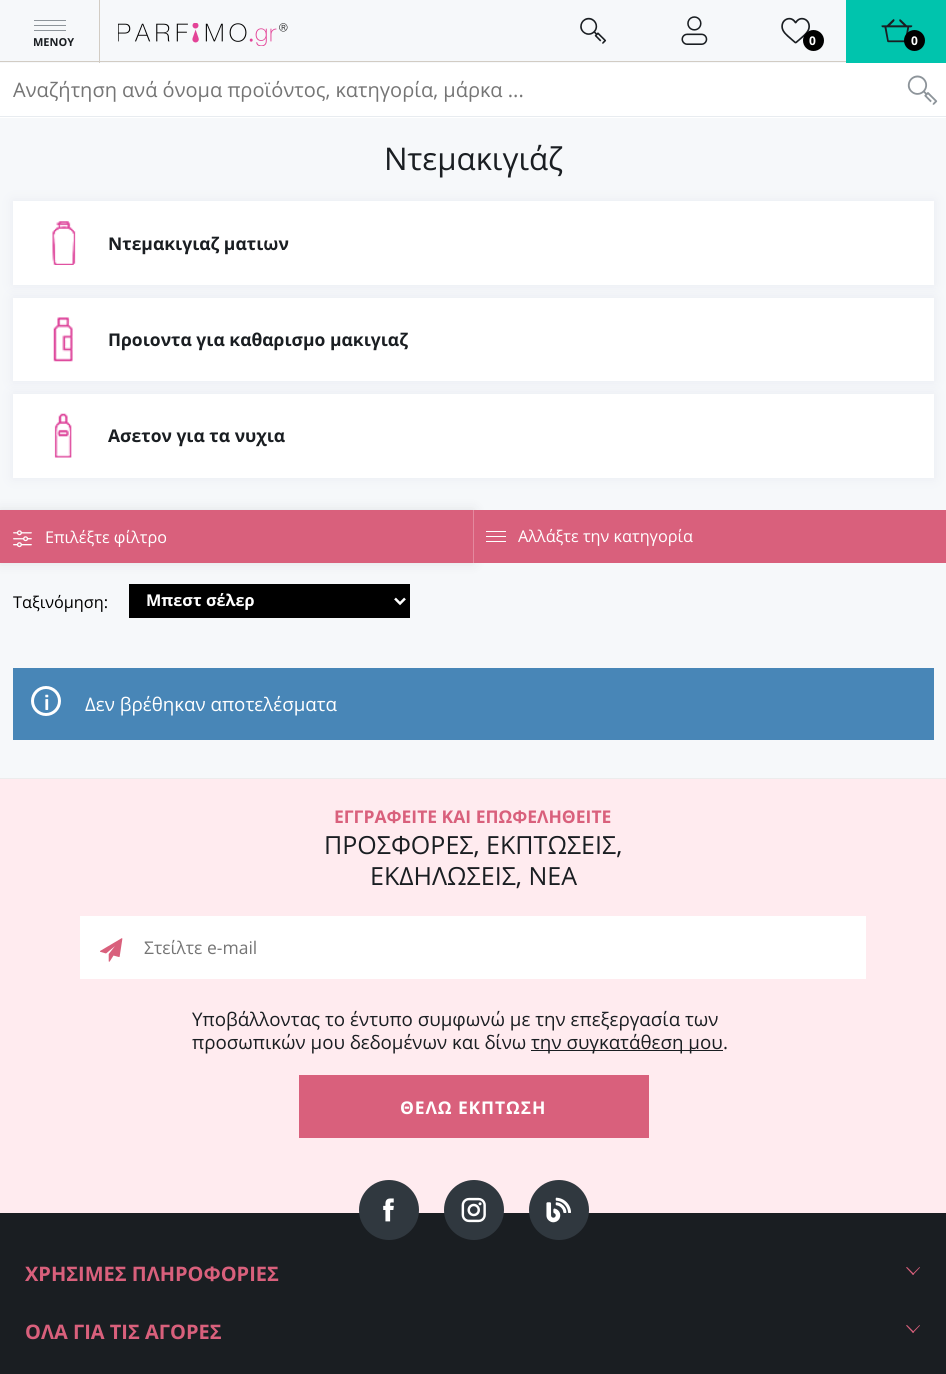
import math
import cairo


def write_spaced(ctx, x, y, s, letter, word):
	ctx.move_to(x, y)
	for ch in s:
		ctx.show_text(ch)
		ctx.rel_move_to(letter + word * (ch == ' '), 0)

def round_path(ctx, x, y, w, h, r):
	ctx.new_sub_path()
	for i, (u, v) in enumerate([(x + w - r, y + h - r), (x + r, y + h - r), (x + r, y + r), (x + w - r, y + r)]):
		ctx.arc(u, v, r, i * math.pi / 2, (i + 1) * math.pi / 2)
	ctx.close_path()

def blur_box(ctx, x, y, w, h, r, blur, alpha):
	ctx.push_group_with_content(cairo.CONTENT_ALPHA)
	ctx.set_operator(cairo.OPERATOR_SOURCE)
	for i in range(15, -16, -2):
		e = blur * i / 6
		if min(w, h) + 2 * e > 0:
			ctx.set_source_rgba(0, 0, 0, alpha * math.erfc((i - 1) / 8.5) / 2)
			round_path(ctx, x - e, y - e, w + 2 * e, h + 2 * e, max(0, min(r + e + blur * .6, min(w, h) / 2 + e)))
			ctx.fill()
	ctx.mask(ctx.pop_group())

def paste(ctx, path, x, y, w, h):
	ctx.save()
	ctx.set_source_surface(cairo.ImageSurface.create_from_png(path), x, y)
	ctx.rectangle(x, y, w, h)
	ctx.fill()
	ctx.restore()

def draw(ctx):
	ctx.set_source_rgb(1, 1, 1)
	ctx.paint()
	ctx.set_source_rgb(0.961, 0.969, 0.98)
	ctx.rectangle(0, 0, 846, 63)
	ctx.fill()
	ctx.set_source_rgb(0.824, 0.8, 0.769)
	ctx.rectangle(0, 61, 846, 1)
	ctx.rectangle(99, 0, 1, 63)
	ctx.fill()
	ctx.set_source_rgb(0.553, 0.58, 0.604)
	ctx.rectangle(34, 25, 32, 1)
	ctx.rectangle(34, 20, 32, 1)
	ctx.rectangle(34, 30, 32, 1)
	ctx.fill()
	ctx.select_font_face('Open Sans', cairo.FONT_SLANT_NORMAL, cairo.FONT_WEIGHT_BOLD)
	ctx.set_font_size(11)
	ctx.set_source_rgb(0.102, 0.118, 0.133)
	ctx.move_to(33, 46)
	ctx.show_text('ΜΕΝΟΥ')
	paste(ctx, 'media/1.png', 118, 23, 170, 23)
	paste(ctx, 'media/2.png', 580, 17, 27, 27)
	paste(ctx, 'media/3.png', 681, 16, 27, 29)
	paste(ctx, 'media/4.png', 781, 17, 29, 27)
	ctx.set_source_rgb(0, 0, 0)
	ctx.arc(813.5, 40.5, 10.5, 0, 2 * math.pi)
	ctx.fill()
	ctx.set_font_size(12)
	ctx.set_source_rgb(1, 1, 1)
	ctx.move_to(809, 45)
	ctx.show_text('0')
	ctx.set_source_rgb(0, 0.769, 0.678)
	ctx.rectangle(846, 0, 100, 63)
	ctx.fill()
	paste(ctx, 'media/5.png', 881, 19, 32, 24)
	ctx.set_source_rgb(0, 0, 0)
	ctx.arc(914.5, 40.5, 10.5, 0, 2 * math.pi)
	ctx.fill()
	ctx.set_source_rgb(1, 1, 1)
	ctx.move_to(911, 45)
	ctx.show_text('0')
	ctx.set_source_rgb(0.91, 0.922, 0.941)
	ctx.rectangle(0, 116, 946, 1)
	ctx.fill()
	ctx.select_font_face('Open Sans')
	ctx.set_font_size(20)
	ctx.set_source_rgb(0.459, 0.459, 0.459)
	ctx.move_to(13, 97)
	ctx.show_text('Αναζήτηση ανά όνομα προϊόντος, κατηγορία, μάρκα ...')
	paste(ctx, 'media/6.png', 907, 75, 31, 30)
	ctx.set_source_rgb(0.961, 0.969, 0.98)
	ctx.rectangle(0, 118, 946, 660)
	ctx.fill()
	ctx.set_font_size(31.25)
	ctx.set_source_rgb(0.102, 0.118, 0.133)
	ctx.move_to(384, 170)
	ctx.show_text('Ντεμακιγιάζ')
	ctx.set_source_rgb(0.439, 0.494, 0.631)
	blur_box(ctx, 13, 201, 921, 84, 0, 6, 0.1)
	ctx.set_source_rgb(1, 1, 1)
	ctx.rectangle(13, 201, 921, 84)
	ctx.fill()
	paste(ctx, 'media/7.png', 52, 221, 24, 44)
	ctx.select_font_face('Open Sans', cairo.FONT_SLANT_NORMAL, cairo.FONT_WEIGHT_BOLD)
	ctx.set_font_size(17.5)
	ctx.set_source_rgb(0.102, 0.118, 0.133)
	ctx.move_to(108, 250)
	ctx.show_text('Ντεμακιγιαζ ματιων')
	ctx.set_source_rgb(0.439, 0.494, 0.631)
	blur_box(ctx, 13, 298, 921, 83, 0, 6, 0.1)
	ctx.set_source_rgb(1, 1, 1)
	ctx.rectangle(13, 298, 921, 83)
	ctx.fill()
	paste(ctx, 'media/8.png', 53, 317, 20, 45)
	ctx.set_source_rgb(0.102, 0.118, 0.133)
	ctx.move_to(108, 346)
	ctx.show_text('Προιοντα για καθαρισμο μακιγιαζ')
	ctx.set_source_rgb(0.439, 0.494, 0.631)
	blur_box(ctx, 13, 394, 921, 84, 0, 6, 0.1)
	ctx.set_source_rgb(1, 1, 1)
	ctx.rectangle(13, 394, 921, 84)
	ctx.fill()
	paste(ctx, 'media/9.png', 54, 413, 18, 45)
	ctx.set_source_rgb(0.102, 0.118, 0.133)
	ctx.move_to(108, 442)
	ctx.show_text('Ασετον για τα νυχια')
	ctx.set_source_rgb(0.102, 0.118, 0.133)
	blur_box(ctx, 0, 510, 474, 53, 0, 6, 0.1)
	ctx.set_source_rgb(0.851, 0.376, 0.486)
	ctx.rectangle(0, 510, 473, 53)
	ctx.fill()
	ctx.set_source_rgb(0.894, 0.537, 0.62)
	ctx.rectangle(473, 510, 1, 53)
	ctx.fill()
	paste(ctx, 'media/10.png', 13, 530, 19, 18)
	ctx.select_font_face('Open Sans')
	ctx.set_font_size(16.25)
	ctx.set_source_rgb(1, 1, 1)
	ctx.move_to(45, 543)
	ctx.show_text('Επιλέξτε φίλτρο')
	ctx.set_source_rgb(0.851, 0.376, 0.486)
	ctx.rectangle(474, 510, 472, 53)
	ctx.fill()
	ctx.set_source_rgb(1, 1, 1)
	ctx.rectangle(486, 536, 20, 1)
	ctx.rectangle(486, 531, 20, 1)
	ctx.rectangle(486, 541, 20, 1)
	ctx.fill()
	ctx.move_to(518, 542)
	ctx.show_text('Αλλάξτε την κατηγορία')
	ctx.set_source_rgb(0, 0, 0)
	ctx.move_to(13, 608)
	ctx.show_text('Ταξινόμηση:')
	ctx.rectangle(129, 584, 281, 34)
	ctx.fill()
	ctx.new_path()
	ctx.move_to(395, 598.5)
	ctx.line_to(400, 603.5)
	ctx.line_to(405, 598.5)
	ctx.set_source_rgb(1, 1, 1)
	ctx.set_line_width(2.5)
	ctx.stroke()
	ctx.select_font_face('Open Sans', cairo.FONT_SLANT_NORMAL, cairo.FONT_WEIGHT_BOLD)
	ctx.move_to(146, 606)
	ctx.show_text('Μπεστ σέλερ')
	ctx.set_source_rgb(0.282, 0.525, 0.718)
	ctx.rectangle(13, 668, 921, 72)
	ctx.fill()
	ctx.arc(46, 701, 13.5, 0, 2 * math.pi)
	ctx.set_source_rgb(1, 1, 1)
	ctx.set_line_width(3)
	ctx.stroke()
	ctx.select_font_face('Rubik Medium')
	ctx.set_font_size(21)
	ctx.move_to(44, 710)
	ctx.show_text('i')
	ctx.select_font_face('Open Sans')
	ctx.set_font_size(18.75)
	ctx.move_to(85, 711)
	ctx.show_text('Δεν βρέθηκαν αποτελέσματα')
	ctx.set_source_rgb(1, 0.918, 0.937)
	ctx.rectangle(0, 779, 946, 434)
	ctx.fill()
	ctx.set_source_rgb(0.925, 0.925, 0.925)
	ctx.rectangle(0, 778, 946, 1)
	ctx.fill()
	ctx.select_font_face('Open Sans', cairo.FONT_SLANT_NORMAL, cairo.FONT_WEIGHT_BOLD)
	ctx.set_font_size(17.5)
	ctx.set_source_rgb(0.851, 0.376, 0.486)
	ctx.move_to(334, 823)
	ctx.show_text('ΕΓΓΡΑΦΕΙΤΕ ΚΑΙ ΕΠΩΦΕΛΗΘΕΙΤΕ')
	ctx.select_font_face('Open Sans')
	ctx.set_font_size(25)
	ctx.set_source_rgb(0.102, 0.118, 0.133)
	ctx.move_to(324, 854)
	ctx.show_text('ΠΡΟΣΦΟΡΕΣ, ΕΚΠΤΩΣΕΙΣ,')
	ctx.move_to(370, 885)
	ctx.show_text('ΕΚΔΗΛΩΣΕΙΣ, ΝΕΑ')
	ctx.set_source_rgb(1, 1, 1)
	ctx.rectangle(80, 916, 786, 63)
	ctx.fill()
	paste(ctx, 'media/11.png', 100, 938, 23, 24)
	ctx.set_font_size(17.5)
	ctx.set_source_rgb(0.459, 0.459, 0.459)
	ctx.move_to(144, 954)
	ctx.show_text('Στείλτε e-mail')
	ctx.set_font_size(18.75)
	ctx.set_source_rgb(0.102, 0.118, 0.133)
	ctx.move_to(192, 1026)
	ctx.show_text('Υποβάλλοντας το έντυπο συμφωνώ με την επεξεργασία των')
	ctx.move_to(192, 1049)
	ctx.show_text('προσωπικών μου δεδομένων και δίνω')
	ctx.rectangle(531, 1050, 192, 1)
	ctx.fill()
	ctx.move_to(531, 1049)
	ctx.show_text('την συγκατάθεση μου')
	ctx.move_to(723, 1049)
	ctx.show_text('.')
	ctx.set_source_rgb(0.851, 0.376, 0.486)
	ctx.rectangle(299, 1075, 350, 63)
	ctx.fill()
	ctx.select_font_face('Open Sans', cairo.FONT_SLANT_NORMAL, cairo.FONT_WEIGHT_BOLD)
	ctx.set_font_size(17.5)
	ctx.set_source_rgb(1, 1, 1)
	write_spaced(ctx, 400, 1114, 'ΘΕΛΩ ΕΚΠΤΩΣΗ', 0.9, 0)
	ctx.set_source_rgb(0.102, 0.118, 0.133)
	ctx.rectangle(0, 1213, 946, 161)
	ctx.fill()
	ctx.set_source_rgb(0.188, 0.22, 0.247)
	ctx.arc(389, 1210, 30, 0, 2 * math.pi)
	ctx.fill()
	paste(ctx, 'media/12.png', 383, 1198, 11, 24)
	ctx.arc(474, 1210, 30, 0, 2 * math.pi)
	ctx.fill()
	paste(ctx, 'media/13.png', 461, 1197, 25, 26)
	ctx.arc(559, 1210, 30, 0, 2 * math.pi)
	ctx.fill()
	paste(ctx, 'media/14.png', 546, 1197, 25, 26)
	ctx.set_font_size(20)
	ctx.set_source_rgb(0.851, 0.376, 0.486)
	ctx.move_to(25, 1281)
	ctx.show_text('ΧΡΗΣΙΜΕΣ ΠΛΗΡΟΦΟΡΙΕΣ')
	ctx.new_path()
	ctx.move_to(912.5, 1274)
	ctx.line_to(919.5, 1267)
	ctx.line_to(920, 1267.5)
	ctx.line_to(913, 1275)
	ctx.close_path()
	ctx.fill()
	ctx.new_path()
	ctx.move_to(913, 1275)
	ctx.line_to(906, 1267.5)
	ctx.line_to(907, 1267)
	ctx.line_to(914, 1274)
	ctx.close_path()
	ctx.fill()
	ctx.move_to(25, 1339)
	ctx.show_text('ΟΛΑ ΓΙΑ ΤΙΣ ΑΓΟΡΕΣ')
	ctx.new_path()
	ctx.move_to(912.5, 1332)
	ctx.line_to(919.5, 1325)
	ctx.line_to(920, 1325.5)
	ctx.line_to(913, 1333)
	ctx.close_path()
	ctx.fill()
	ctx.new_path()
	ctx.move_to(913, 1333)
	ctx.line_to(906, 1325.5)
	ctx.line_to(907, 1325)
	ctx.line_to(914, 1332)
	ctx.close_path()
	ctx.fill()


surface = cairo.ImageSurface(cairo.FORMAT_RGB24, 946, 1374)
ctx = cairo.Context(surface)
options = cairo.FontOptions()
options.set_hint_metrics(cairo.HINT_METRICS_OFF)
options.set_hint_style(cairo.HINT_STYLE_NONE)
ctx.set_font_options(options)
ctx.set_miter_limit(4)
draw(ctx)
surface.write_to_png('image.png')
